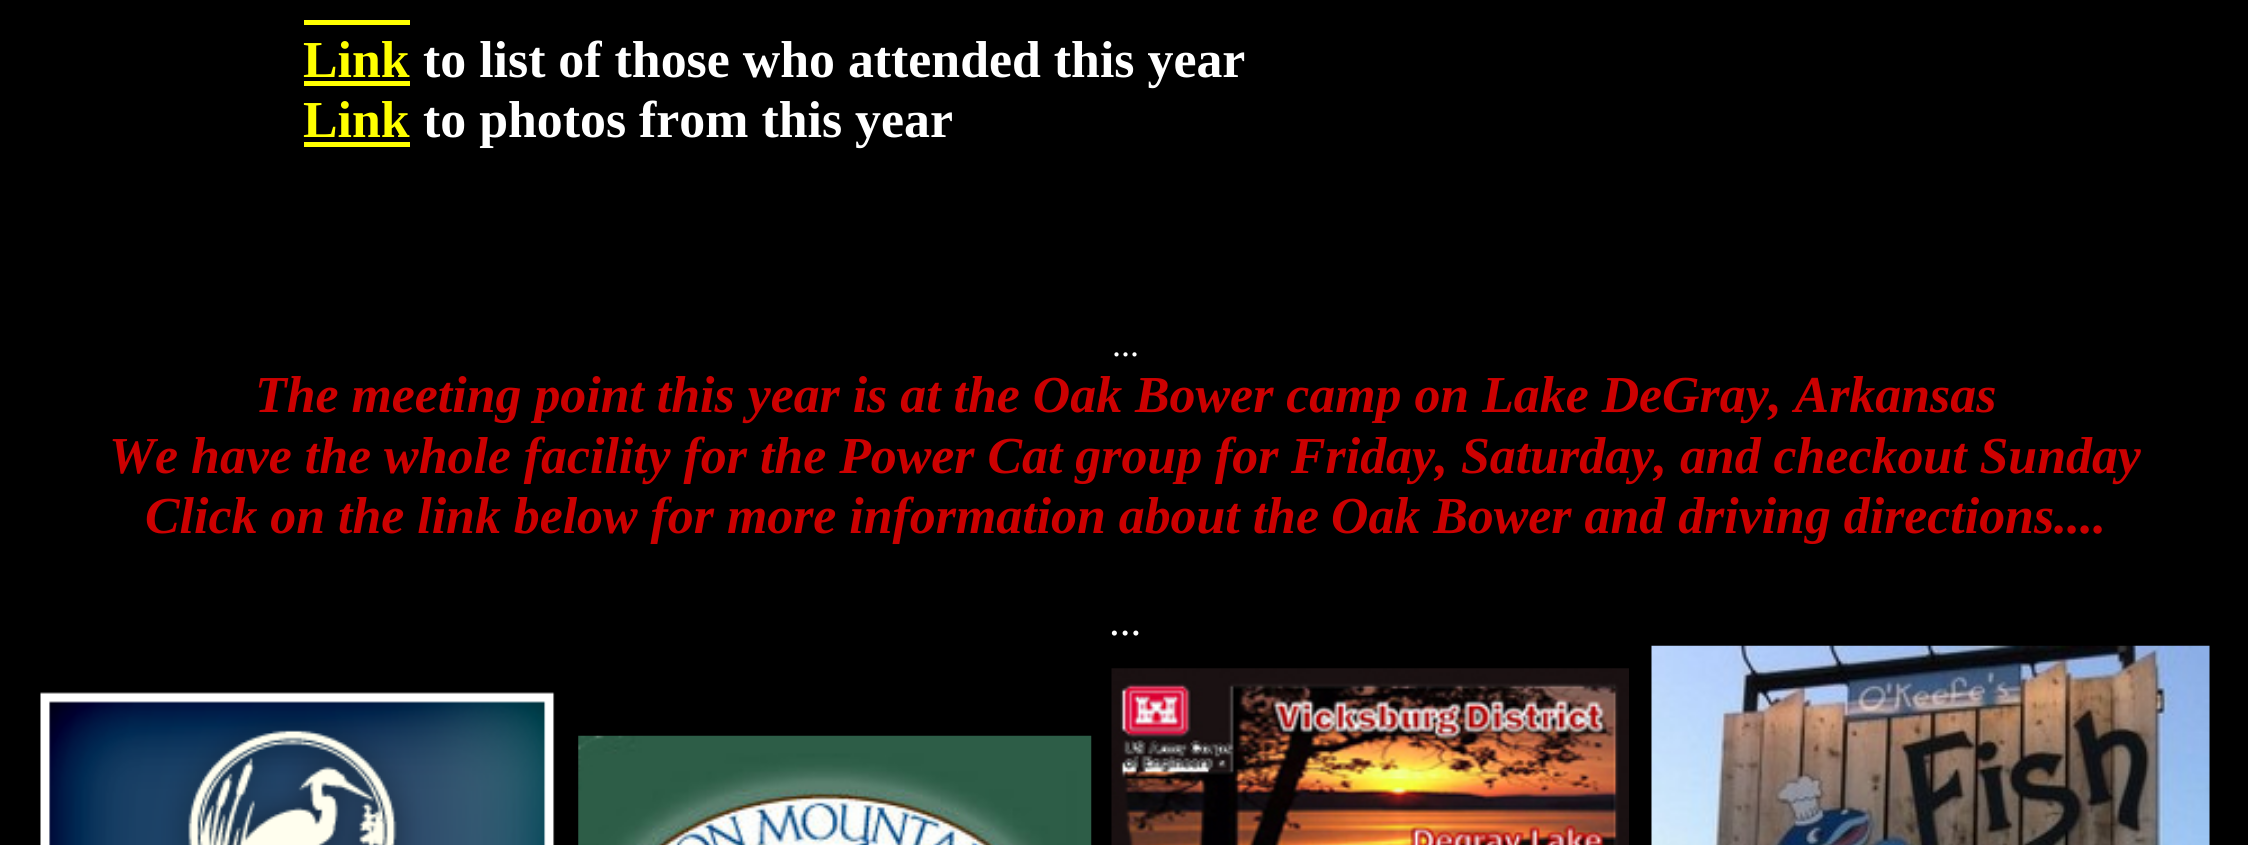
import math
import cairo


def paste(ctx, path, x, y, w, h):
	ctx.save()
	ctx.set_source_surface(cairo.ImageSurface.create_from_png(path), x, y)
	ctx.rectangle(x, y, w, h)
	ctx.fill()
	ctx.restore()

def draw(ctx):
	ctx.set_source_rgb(0, 0, 0)
	ctx.paint()
	ctx.set_source_rgb(1, 1, 0)
	ctx.rectangle(304, 20, 106, 5)
	ctx.fill()
	ctx.select_font_face('Liberation Serif', cairo.FONT_SLANT_NORMAL, cairo.FONT_WEIGHT_BOLD)
	ctx.set_font_size(51.85)
	ctx.move_to(303, 77)
	ctx.show_text('Link')
	ctx.rectangle(304, 81, 106, 5)
	ctx.fill()
	ctx.set_source_rgb(1, 1, 1)
	ctx.move_to(423, 77)
	ctx.show_text('to list of those who attended this year')
	ctx.set_source_rgb(1, 1, 0)
	ctx.move_to(303, 137)
	ctx.show_text('Link')
	ctx.rectangle(304, 142, 106, 5)
	ctx.fill()
	ctx.set_source_rgb(1, 1, 1)
	ctx.move_to(423, 137)
	ctx.show_text('to photos from this year')
	ctx.select_font_face('Liberation Serif')
	ctx.set_font_size(36)
	ctx.move_to(1112, 356)
	ctx.show_text('...')
	ctx.select_font_face('Liberation Serif', cairo.FONT_SLANT_ITALIC, cairo.FONT_WEIGHT_BOLD)
	ctx.set_font_size(51.85)
	ctx.set_source_rgb(0.8, 0, 0)
	for x, y, s in [
		(255, 412, 'The meeting point this year is at the Oak Bower camp on Lake DeGray, Arkansas'),
		(109, 473, 'We have the whole facility for the Power Cat group for'),
		(1291, 473, 'Friday, Saturday, and checkout Sunday'),
		(145, 533, 'Click on the link below for more information about the'),
		(1331, 533, 'Oak Bower and driving directions....'),
	]:
		ctx.move_to(x, y)
		ctx.show_text(s)
	ctx.select_font_face('Liberation Serif')
	ctx.set_font_size(43)
	ctx.set_source_rgb(1, 1, 1)
	ctx.move_to(1109, 635)
	ctx.show_text('...')
	paste(ctx, 'media/1.png', 40, 692, 515, 153)
	paste(ctx, 'media/2.png', 578, 735, 514, 110)
	paste(ctx, 'media/3.png', 1111, 668, 518, 177)
	paste(ctx, 'media/4.png', 1651, 645, 559, 200)


surface = cairo.ImageSurface(cairo.FORMAT_RGB24, 2248, 845)
ctx = cairo.Context(surface)
options = cairo.FontOptions()
options.set_hint_metrics(cairo.HINT_METRICS_OFF)
options.set_hint_style(cairo.HINT_STYLE_NONE)
ctx.set_font_options(options)
ctx.set_miter_limit(4)
draw(ctx)
surface.write_to_png('image.png')
